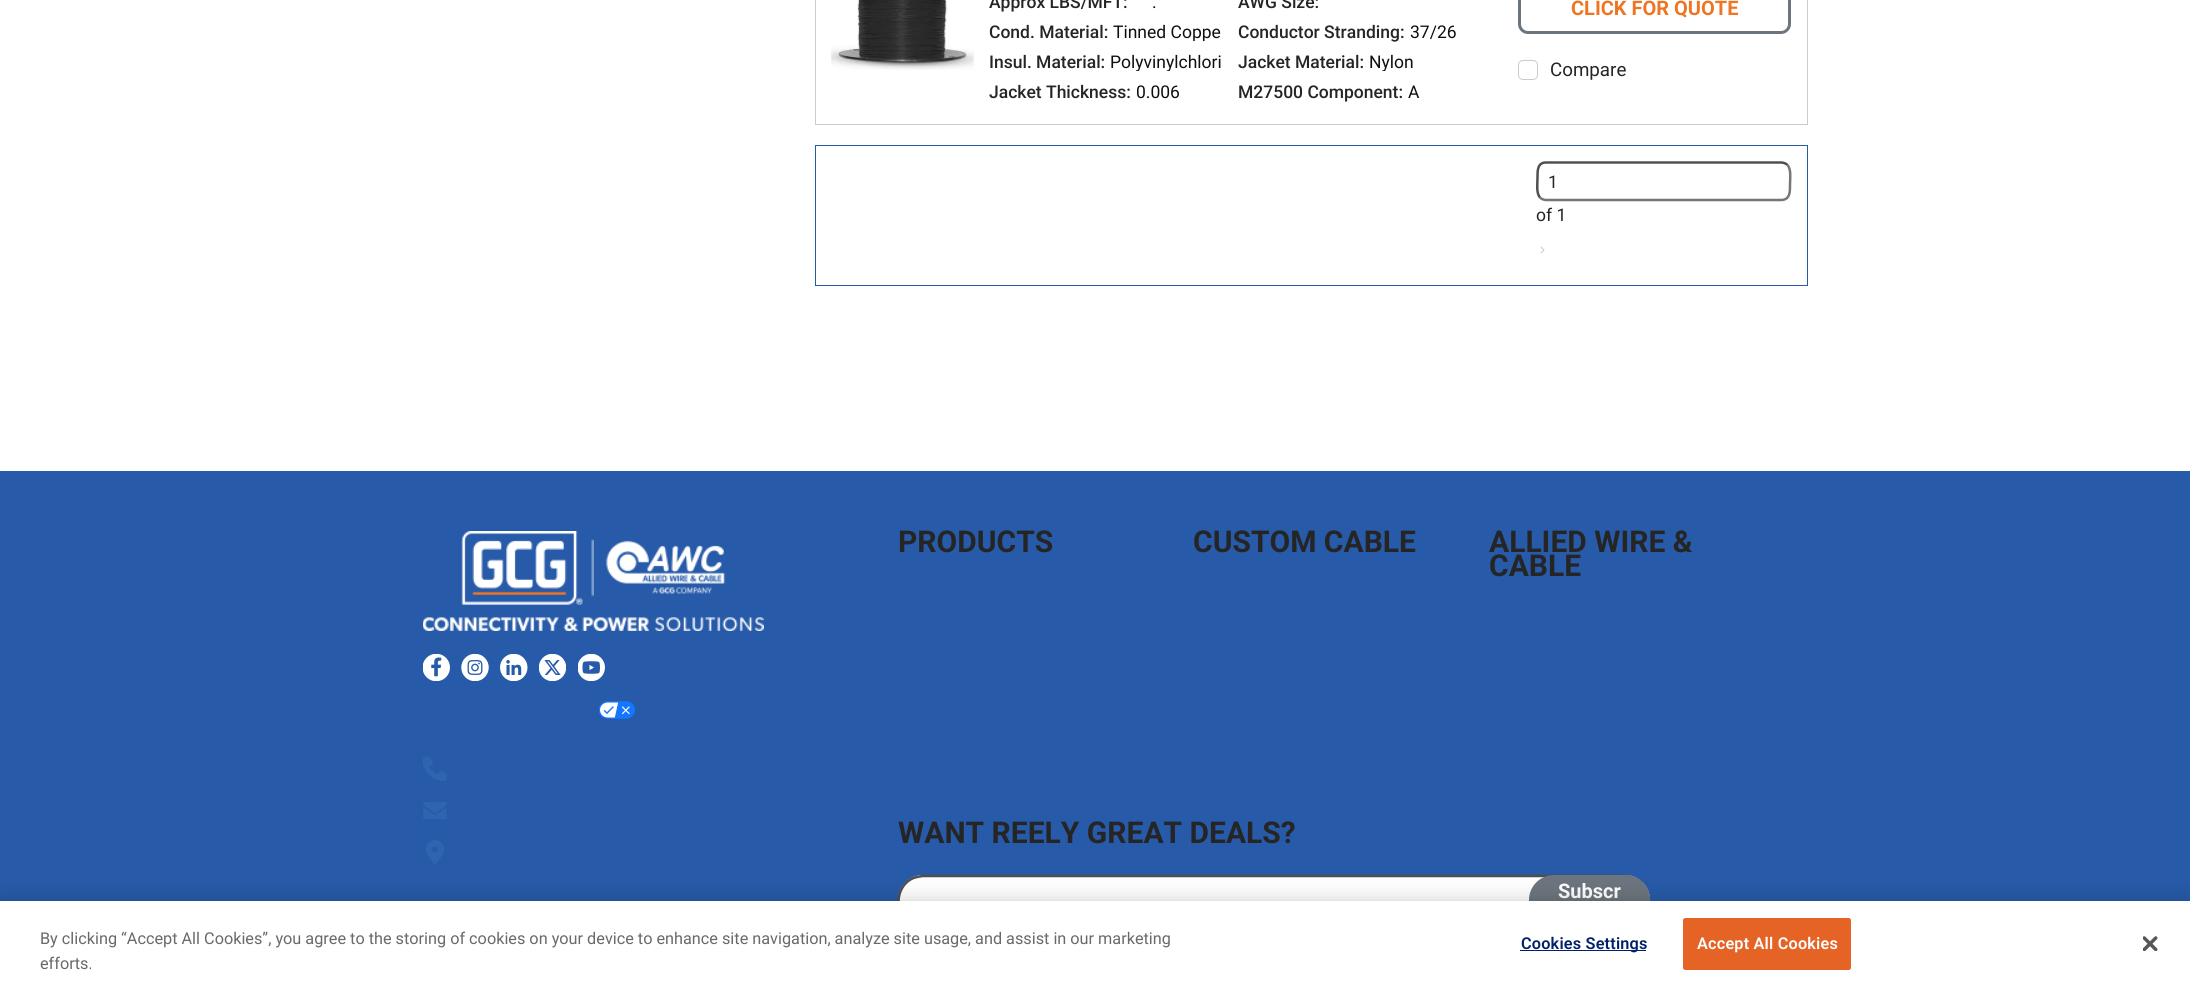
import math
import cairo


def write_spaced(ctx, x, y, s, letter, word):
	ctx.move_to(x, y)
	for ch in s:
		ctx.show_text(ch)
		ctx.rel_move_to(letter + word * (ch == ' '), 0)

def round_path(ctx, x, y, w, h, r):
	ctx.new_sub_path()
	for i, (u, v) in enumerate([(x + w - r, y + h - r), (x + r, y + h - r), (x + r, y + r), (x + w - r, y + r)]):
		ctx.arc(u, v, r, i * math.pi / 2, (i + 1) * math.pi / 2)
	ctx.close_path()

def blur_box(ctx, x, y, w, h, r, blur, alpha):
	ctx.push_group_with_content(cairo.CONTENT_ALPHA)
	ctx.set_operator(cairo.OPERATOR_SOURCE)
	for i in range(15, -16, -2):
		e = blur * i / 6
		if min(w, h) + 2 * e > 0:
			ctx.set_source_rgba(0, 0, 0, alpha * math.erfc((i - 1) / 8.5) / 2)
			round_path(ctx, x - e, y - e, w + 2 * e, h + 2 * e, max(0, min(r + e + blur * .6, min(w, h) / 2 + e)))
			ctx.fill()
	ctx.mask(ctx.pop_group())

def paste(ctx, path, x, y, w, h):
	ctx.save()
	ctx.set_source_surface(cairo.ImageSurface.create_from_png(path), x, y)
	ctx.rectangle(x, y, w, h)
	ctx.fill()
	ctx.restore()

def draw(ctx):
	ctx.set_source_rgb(1, 1, 1)
	ctx.paint()
	ctx.rectangle(815.5, -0.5, 992, 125)
	ctx.set_source_rgb(0.8, 0.8, 0.8)
	ctx.set_line_width(1)
	ctx.stroke()
	paste(ctx, 'media/1.png', 831, 0, 143, 70)
	ctx.select_font_face('Roboto Medium')
	ctx.set_font_size(17.5)
	ctx.set_source_rgb(0.145, 0.145, 0.145)
	ctx.move_to(989, 8)
	ctx.show_text('Approx LBS/MFT:')
	ctx.select_font_face('Roboto')
	ctx.set_source_rgb(0.059, 0.059, 0.059)
	ctx.move_to(1152, 8)
	ctx.show_text('.')
	ctx.select_font_face('Roboto Medium')
	ctx.set_source_rgb(0.145, 0.145, 0.145)
	ctx.move_to(1238, 8)
	ctx.show_text('AWG Size:')
	ctx.move_to(989, 38)
	ctx.show_text('Cond. Material:')
	ctx.save()
	ctx.rectangle(1113, 21, 111, 20)
	ctx.clip()
	ctx.select_font_face('Roboto')
	ctx.set_source_rgb(0.059, 0.059, 0.059)
	ctx.move_to(1113, 38)
	ctx.show_text('Tinned Coppe')
	ctx.restore()
	ctx.move_to(1238, 38)
	ctx.show_text('Conductor Stranding:')
	ctx.select_font_face('Roboto')
	ctx.set_source_rgb(0.059, 0.059, 0.059)
	ctx.move_to(1410, 38)
	ctx.show_text('37/26')
	ctx.select_font_face('Roboto Medium')
	ctx.set_source_rgb(0.145, 0.145, 0.145)
	ctx.move_to(989, 68)
	ctx.show_text('Insul. Material:')
	ctx.save()
	ctx.rectangle(1110, 51, 114, 20)
	ctx.clip()
	ctx.select_font_face('Roboto')
	ctx.set_source_rgb(0.059, 0.059, 0.059)
	ctx.move_to(1110, 68)
	ctx.show_text('Polyvinylchlori')
	ctx.restore()
	ctx.move_to(1238, 68)
	ctx.show_text('Jacket Material:')
	ctx.save()
	ctx.rectangle(1369, 51, 104, 20)
	ctx.clip()
	ctx.select_font_face('Roboto')
	ctx.set_source_rgb(0.059, 0.059, 0.059)
	ctx.move_to(1369, 68)
	ctx.show_text('Nylon')
	ctx.restore()
	ctx.move_to(989, 98)
	ctx.show_text('Jacket Thickness:')
	ctx.select_font_face('Roboto')
	ctx.set_source_rgb(0.059, 0.059, 0.059)
	ctx.move_to(1136, 98)
	ctx.show_text('0.006')
	ctx.select_font_face('Roboto Medium')
	ctx.set_source_rgb(0.145, 0.145, 0.145)
	ctx.move_to(1238, 98)
	ctx.show_text('M27500 Component:')
	ctx.select_font_face('Roboto')
	ctx.set_source_rgb(0.059, 0.059, 0.059)
	ctx.move_to(1408, 98)
	ctx.show_text('A')
	round_path(ctx, 1519.5, -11.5, 270, 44, 8.5)
	ctx.set_source_rgb(0.424, 0.459, 0.49)
	ctx.set_line_width(3)
	ctx.stroke()
	ctx.select_font_face('Roboto', cairo.FONT_SLANT_NORMAL, cairo.FONT_WEIGHT_BOLD)
	ctx.set_font_size(20)
	ctx.set_source_rgb(0.933, 0.463, 0.137)
	ctx.move_to(1571, 15)
	ctx.show_text('CLICK FOR QUOTE')
	round_path(ctx, 1518.5, 60.5, 19, 19, 4.5)
	ctx.set_source_rgb(0.8, 0.8, 0.8)
	ctx.set_line_width(1)
	ctx.stroke()
	ctx.select_font_face('Roboto')
	ctx.set_font_size(18.75)
	ctx.set_source_rgb(0.145, 0.145, 0.145)
	ctx.move_to(1550, 76)
	ctx.show_text('Compare')
	ctx.rectangle(815.5, 145.5, 992, 140)
	ctx.set_source_rgb(0.153, 0.353, 0.659)
	ctx.stroke()
	ctx.new_path()
	ctx.move_to(1787.5, 165)
	ctx.curve_to(1791.5, 169.5, 1790, 179, 1790, 184.5)
	ctx.curve_to(1790, 191, 1790.5, 200, 1781, 200)
	ctx.line_to(1546, 200)
	ctx.curve_to(1544, 200, 1541.5, 199, 1540, 197.5)
	ctx.set_source_rgb(0.463, 0.463, 0.463)
	ctx.set_line_width(2.5)
	ctx.stroke()
	ctx.new_path()
	ctx.move_to(1540, 197.5)
	ctx.curve_to(1536, 193, 1537.5, 183.5, 1537.5, 178)
	ctx.curve_to(1537.5, 171.5, 1537, 162.5, 1546, 162.5)
	ctx.line_to(1781, 162.5)
	ctx.curve_to(1783.5, 162.5, 1786, 163.5, 1787.5, 165)
	ctx.set_source_rgb(0.31, 0.31, 0.31)
	ctx.stroke()
	ctx.set_font_size(17.5)
	ctx.set_source_rgb(0.145, 0.145, 0.145)
	ctx.move_to(1548, 188)
	ctx.show_text('1')
	ctx.move_to(1536, 221)
	ctx.show_text('of 1')
	ctx.new_path()
	ctx.move_to(1541, 253)
	ctx.line_to(1544, 250)
	ctx.line_to(1541, 247)
	ctx.set_source_rgb(0.8, 0.8, 0.8)
	ctx.set_line_width(1)
	ctx.set_line_cap(cairo.LINE_CAP_ROUND)
	ctx.set_line_join(cairo.LINE_JOIN_ROUND)
	ctx.stroke()
	ctx.set_source_rgb(0.153, 0.353, 0.659)
	ctx.rectangle(0, 471, 2190, 430)
	ctx.fill()
	paste(ctx, 'media/2.png', 423, 531, 341, 100)
	paste(ctx, 'media/3.png', 423, 654, 27, 27)
	paste(ctx, 'media/4.png', 461, 654, 28, 27)
	paste(ctx, 'media/5.png', 500, 654, 28, 27)
	paste(ctx, 'media/6.png', 539, 654, 27, 27)
	paste(ctx, 'media/7.png', 578, 654, 27, 27)
	paste(ctx, 'media/8.png', 599, 701, 36, 18)
	paste(ctx, 'media/9.png', 423, 756, 24, 25)
	paste(ctx, 'media/10.png', 423, 802, 24, 17)
	paste(ctx, 'media/11.png', 426, 840, 18, 25)
	ctx.select_font_face('Roboto', cairo.FONT_SLANT_NORMAL, cairo.FONT_WEIGHT_BOLD)
	ctx.set_font_size(30)
	ctx.set_source_rgb(0.145, 0.145, 0.145)
	for x, y, s in [
		(898, 552, 'PRODUCTS'),
		(1193, 552, 'CUSTOM CABLE'),
		(1489, 552, 'ALLIED WIRE &'),
		(1489, 576, 'CABLE'),
		(898, 843, 'WANT REELY GREAT DEALS?'),
	]:
		ctx.move_to(x, y)
		ctx.show_text(s)
	ctx.set_source_rgb(1, 1, 1)
	round_path(ctx, 898, 875, 752, 53, 25)
	ctx.fill()
	ctx.new_path()
	ctx.move_to(1642, 883)
	ctx.curve_to(1654, 895.5, 1650, 918, 1634, 924.5)
	ctx.curve_to(1631, 925.5, 1628, 926, 1625, 926)
	ctx.line_to(922.5, 926)
	ctx.curve_to(916, 926, 910, 923.5, 905.5, 919.5)
	ctx.set_source_rgb(0.463, 0.463, 0.463)
	ctx.set_line_width(2.5)
	ctx.set_line_cap(cairo.LINE_CAP_BUTT)
	ctx.set_line_join(cairo.LINE_JOIN_MITER)
	ctx.stroke()
	ctx.new_path()
	ctx.move_to(905.5, 919.5)
	ctx.curve_to(893.5, 907, 897.5, 884.5, 913.5, 878)
	ctx.curve_to(916.5, 877, 919.5, 876.5, 922.5, 876)
	ctx.line_to(1625, 876)
	ctx.curve_to(1631.5, 876.5, 1637.5, 879, 1642, 883)
	ctx.set_source_rgb(0.31, 0.31, 0.31)
	ctx.stroke()
	ctx.set_source_rgb(0.424, 0.459, 0.49)
	round_path(ctx, 1530.5, 876.5, 118, 50, 23.5)
	ctx.fill_preserve()
	ctx.set_line_width(3)
	ctx.stroke()
	ctx.set_font_size(20)
	ctx.set_source_rgb(1, 1, 1)
	ctx.move_to(1558, 898)
	ctx.show_text('Subscr')
	ctx.set_source_rgb(0, 0, 0)
	blur_box(ctx, 0, 901, 2190, 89, 0, 11, 0.2)
	ctx.set_source_rgb(1, 1, 1)
	ctx.rectangle(0, 901, 2190, 88)
	ctx.fill()
	ctx.select_font_face('Roboto')
	ctx.set_font_size(16.25)
	ctx.set_source_rgb(0.412, 0.412, 0.412)
	ctx.move_to(40, 944)
	ctx.show_text('By clicking “Accept All Cookies”, you agree to the storing of cookies on your device to enhance site navigation, analyze site usage, and assist in our marketing')
	ctx.move_to(40, 969)
	ctx.show_text('efforts.')
	ctx.set_source_rgb(0, 0.129, 0.412)
	ctx.rectangle(1520, 950, 126, 1)
	ctx.fill()
	ctx.select_font_face('Roboto SemiBold')
	write_spaced(ctx, 1521, 949, 'Cookies Settings', 0.2, 0)
	ctx.set_source_rgb(0.898, 0.388, 0.145)
	round_path(ctx, 1683.5, 918.5, 167, 51, 2)
	ctx.fill_preserve()
	ctx.set_line_width(1)
	ctx.stroke()
	ctx.set_source_rgb(1, 1, 1)
	write_spaced(ctx, 1697, 949, 'Accept All Cookies', 0.2, 0)
	paste(ctx, 'media/12.png', 2143, 936, 15, 15)


surface = cairo.ImageSurface(cairo.FORMAT_RGB24, 2190, 989)
ctx = cairo.Context(surface)
options = cairo.FontOptions()
options.set_hint_metrics(cairo.HINT_METRICS_OFF)
options.set_hint_style(cairo.HINT_STYLE_NONE)
ctx.set_font_options(options)
ctx.set_miter_limit(4)
draw(ctx)
surface.write_to_png('image.png')
